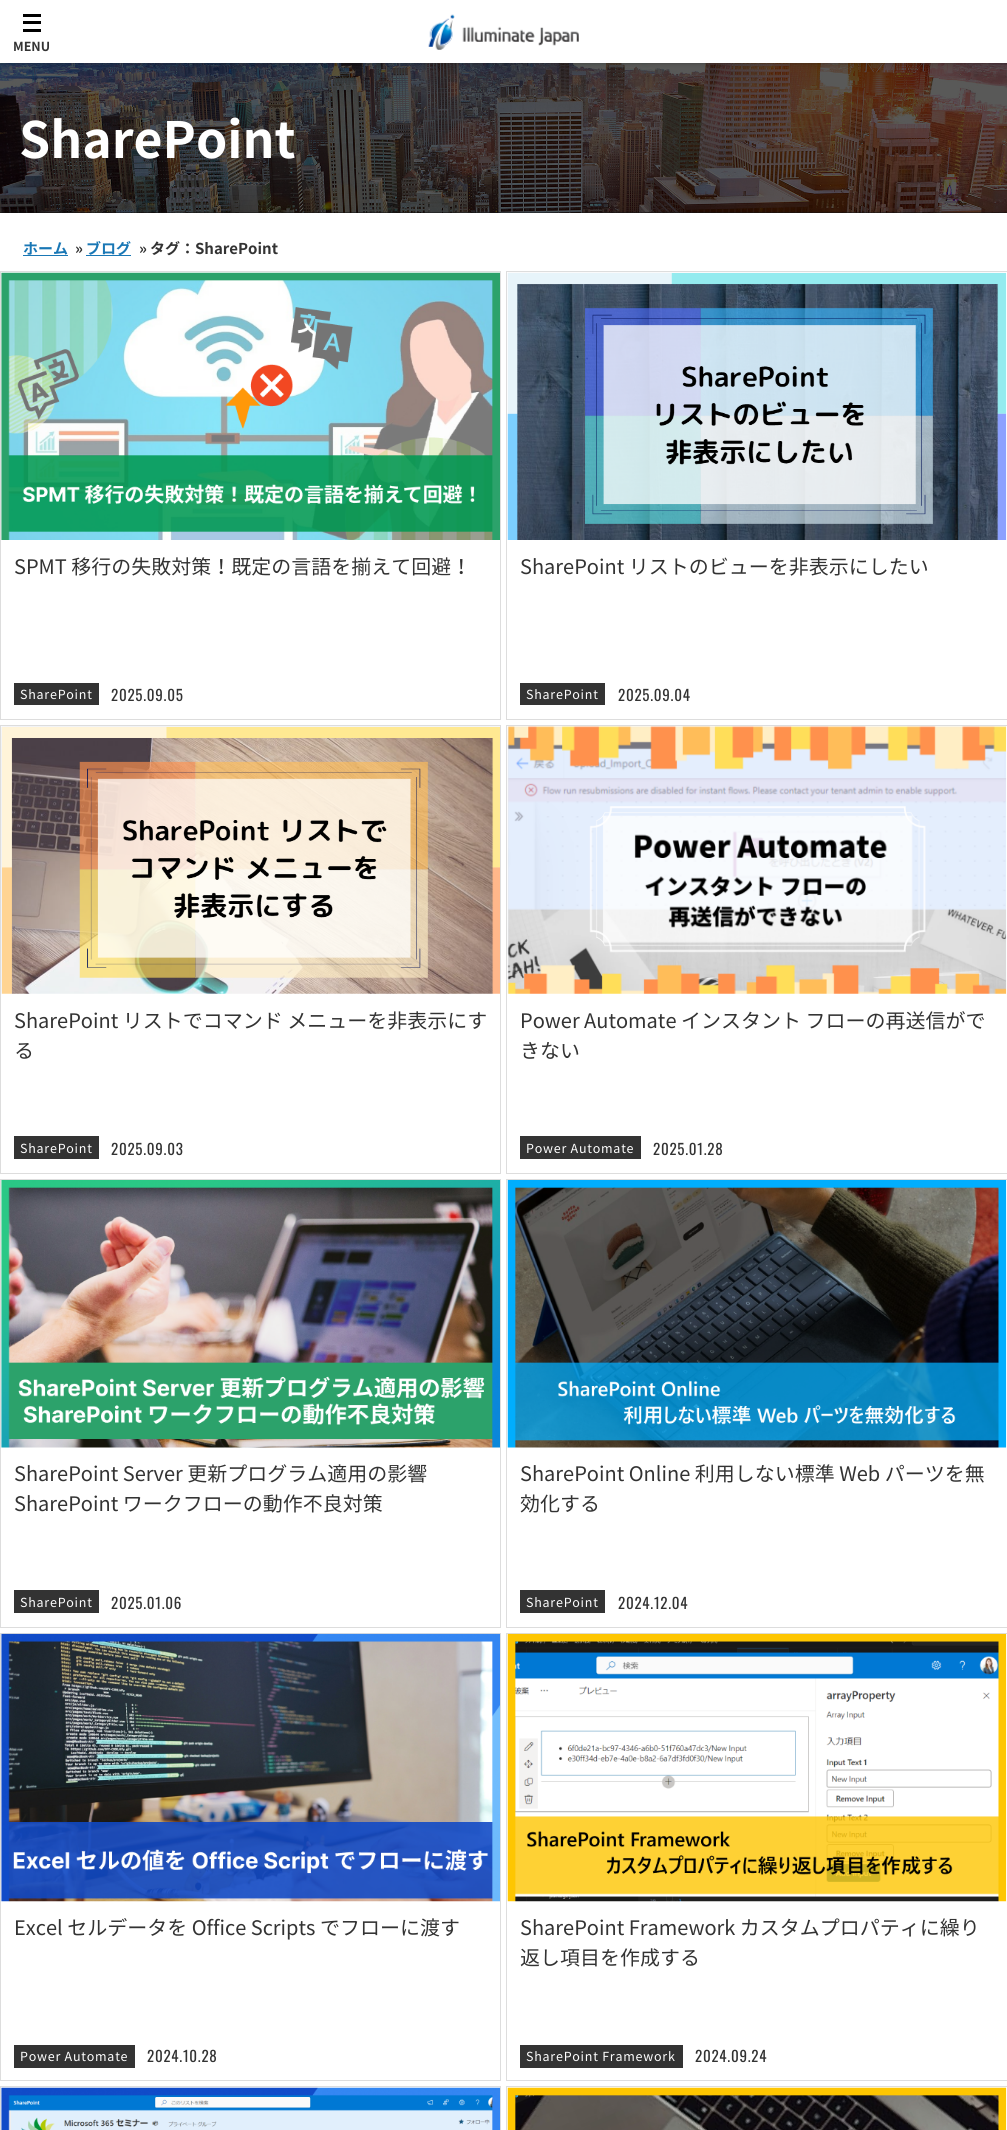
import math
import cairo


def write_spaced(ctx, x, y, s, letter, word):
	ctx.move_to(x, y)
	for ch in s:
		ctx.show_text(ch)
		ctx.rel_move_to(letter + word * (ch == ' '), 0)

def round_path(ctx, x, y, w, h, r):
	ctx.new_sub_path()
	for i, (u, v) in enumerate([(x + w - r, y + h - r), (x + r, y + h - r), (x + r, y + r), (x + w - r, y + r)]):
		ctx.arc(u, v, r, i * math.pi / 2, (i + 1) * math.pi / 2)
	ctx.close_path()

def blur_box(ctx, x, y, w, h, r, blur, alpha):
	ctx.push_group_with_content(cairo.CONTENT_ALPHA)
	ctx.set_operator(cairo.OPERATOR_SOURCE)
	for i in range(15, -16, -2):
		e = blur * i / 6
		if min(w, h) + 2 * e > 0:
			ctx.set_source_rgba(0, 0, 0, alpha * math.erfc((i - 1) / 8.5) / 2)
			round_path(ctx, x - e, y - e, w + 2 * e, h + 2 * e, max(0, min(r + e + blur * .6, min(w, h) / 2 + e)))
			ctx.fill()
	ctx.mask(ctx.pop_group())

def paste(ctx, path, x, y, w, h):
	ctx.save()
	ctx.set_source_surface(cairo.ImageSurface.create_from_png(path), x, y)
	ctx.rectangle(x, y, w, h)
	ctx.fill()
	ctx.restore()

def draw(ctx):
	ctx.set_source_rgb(1, 1, 1)
	ctx.paint()
	ctx.set_source_rgb(0.071, 0.071, 0.071)
	ctx.rectangle(0, 212, 1007, 1)
	ctx.fill()
	paste(ctx, 'media/2.png', 0, 63, 1007, 150)
	ctx.set_source_rgb(0, 0, 0)
	blur_box(ctx, 0, 0, 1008, 63, 0, 2.5, 0.3)
	ctx.set_source_rgb(1, 1, 1)
	ctx.rectangle(0, 0, 1007, 63)
	ctx.fill()
	ctx.set_source_rgb(0, 0, 0)
	ctx.rectangle(23, 14, 18, 3)
	ctx.rectangle(23, 21, 18, 3)
	ctx.rectangle(23, 29, 18, 3)
	ctx.fill()
	ctx.select_font_face('Noto Sans JP', cairo.FONT_SLANT_NORMAL, cairo.FONT_WEIGHT_BOLD)
	ctx.set_font_size(12.5)
	ctx.set_source_rgb(0.2, 0.2, 0.2)
	ctx.move_to(13, 51)
	ctx.show_text('MENU')
	paste(ctx, 'media/1.png', 428, 14, 151, 36)
	ctx.set_font_size(50)
	ctx.set_source_rgb(1, 1, 1)
	ctx.move_to(19, 158)
	ctx.show_text('SharePoint')
	ctx.set_font_size(15)
	ctx.set_source_rgb(0.098, 0.467, 0.71)
	ctx.move_to(23, 254)
	ctx.show_text('ホーム')
	ctx.rectangle(23, 255, 45, 1)
	ctx.fill()
	ctx.set_source_rgb(0.2, 0.2, 0.2)
	ctx.move_to(75, 254)
	ctx.show_text('»')
	ctx.set_source_rgb(0.098, 0.467, 0.71)
	ctx.rectangle(86, 255, 45, 1)
	ctx.fill()
	ctx.move_to(86, 254)
	ctx.show_text('ブログ')
	ctx.set_source_rgb(0.2, 0.2, 0.2)
	ctx.move_to(139, 254)
	ctx.show_text('»')
	ctx.move_to(150, 254)
	ctx.show_text('タグ：SharePoint')
	ctx.rectangle(0.5, 271.5, 500, 448)
	ctx.set_source_rgb(0.867, 0.867, 0.867)
	ctx.set_line_width(1)
	ctx.stroke()
	paste(ctx, 'media/3.png', 1, 272, 499, 268)
	ctx.select_font_face('Noto Sans JP')
	ctx.set_font_size(20)
	ctx.set_source_rgb(0.2, 0.2, 0.2)
	ctx.move_to(14, 574)
	ctx.show_text('SPMT 移行の失敗対策！既定の言語を揃えて回避！')
	ctx.rectangle(14, 683, 85, 22)
	ctx.fill()
	ctx.set_font_size(12.5)
	ctx.set_source_rgb(1, 1, 1)
	write_spaced(ctx, 20, 699, 'SharePoint', 0.75, 0)
	ctx.select_font_face('Oswald')
	ctx.set_font_size(15)
	ctx.set_source_rgb(0.2, 0.2, 0.2)
	write_spaced(ctx, 111, 701, '2025.09.05', 0.75, 0)
	ctx.rectangle(506.5, 271.5, 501, 448)
	ctx.set_source_rgb(0.867, 0.867, 0.867)
	ctx.stroke()
	paste(ctx, 'media/4.png', 507, 272, 500, 268)
	ctx.select_font_face('Noto Sans JP')
	ctx.set_font_size(20)
	ctx.set_source_rgb(0.2, 0.2, 0.2)
	ctx.move_to(520, 574)
	ctx.show_text('SharePoint リストのビューを非表示にしたい')
	ctx.rectangle(520, 683, 85, 22)
	ctx.fill()
	ctx.set_font_size(12.5)
	ctx.set_source_rgb(1, 1, 1)
	write_spaced(ctx, 526, 699, 'SharePoint', 0.75, 0)
	ctx.select_font_face('Oswald')
	ctx.set_font_size(15)
	ctx.set_source_rgb(0.2, 0.2, 0.2)
	write_spaced(ctx, 618, 701, '2025.09.04', 0.75, 0)
	ctx.rectangle(0.5, 725.5, 500, 448)
	ctx.set_source_rgb(0.867, 0.867, 0.867)
	ctx.stroke()
	paste(ctx, 'media/5.png', 1, 726, 499, 268)
	ctx.select_font_face('Noto Sans JP')
	ctx.set_font_size(20)
	ctx.set_source_rgb(0.2, 0.2, 0.2)
	ctx.move_to(14, 1028)
	ctx.show_text('SharePoint リストでコマンド メニューを非表示にす')
	ctx.move_to(14, 1058)
	ctx.show_text('る')
	ctx.rectangle(14, 1136, 85, 23)
	ctx.fill()
	ctx.set_font_size(12.5)
	ctx.set_source_rgb(1, 1, 1)
	write_spaced(ctx, 20, 1153, 'SharePoint', 0.75, 0)
	ctx.select_font_face('Oswald')
	ctx.set_font_size(15)
	ctx.set_source_rgb(0.2, 0.2, 0.2)
	write_spaced(ctx, 111, 1155, '2025.09.03', 0.75, 0)
	ctx.rectangle(506.5, 725.5, 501, 448)
	ctx.set_source_rgb(0.867, 0.867, 0.867)
	ctx.stroke()
	paste(ctx, 'media/6.png', 507, 726, 500, 268)
	ctx.select_font_face('Noto Sans JP')
	ctx.set_font_size(20)
	ctx.set_source_rgb(0.2, 0.2, 0.2)
	ctx.move_to(520, 1028)
	ctx.show_text('Power Automate インスタント フローの再送信がで')
	ctx.move_to(520, 1058)
	ctx.show_text('きない')
	ctx.rectangle(520, 1136, 121, 23)
	ctx.fill()
	ctx.set_font_size(12.5)
	ctx.set_source_rgb(1, 1, 1)
	write_spaced(ctx, 526, 1153, 'Power Automate', 0.75, 0)
	ctx.select_font_face('Oswald')
	ctx.set_font_size(15)
	ctx.set_source_rgb(0.2, 0.2, 0.2)
	write_spaced(ctx, 653, 1155, '2025.01.28', 0.75, 0)
	ctx.rectangle(0.5, 1179.5, 500, 448)
	ctx.set_source_rgb(0.867, 0.867, 0.867)
	ctx.stroke()
	paste(ctx, 'media/7.png', 1, 1180, 499, 268)
	ctx.select_font_face('Noto Sans JP')
	ctx.set_font_size(20)
	ctx.set_source_rgb(0.2, 0.2, 0.2)
	ctx.move_to(14, 1481)
	ctx.show_text('SharePoint Server 更新プログラム適用の影響')
	ctx.move_to(14, 1511)
	ctx.show_text('SharePoint ワークフローの動作不良対策')
	ctx.rectangle(14, 1590, 85, 23)
	ctx.fill()
	ctx.set_font_size(12.5)
	ctx.set_source_rgb(1, 1, 1)
	write_spaced(ctx, 20, 1607, 'SharePoint', 0.75, 0)
	ctx.select_font_face('Oswald')
	ctx.set_font_size(15)
	ctx.set_source_rgb(0.2, 0.2, 0.2)
	write_spaced(ctx, 111, 1609, '2025.01.06', 0.75, 0)
	ctx.rectangle(506.5, 1179.5, 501, 448)
	ctx.set_source_rgb(0.867, 0.867, 0.867)
	ctx.stroke()
	paste(ctx, 'media/8.png', 507, 1180, 500, 268)
	ctx.select_font_face('Noto Sans JP')
	ctx.set_font_size(20)
	ctx.set_source_rgb(0.2, 0.2, 0.2)
	ctx.move_to(520, 1481)
	ctx.show_text('SharePoint Online 利用しない標準 Web パーツを無')
	ctx.move_to(520, 1511)
	ctx.show_text('効化する')
	ctx.rectangle(520, 1590, 85, 23)
	ctx.fill()
	ctx.set_font_size(12.5)
	ctx.set_source_rgb(1, 1, 1)
	write_spaced(ctx, 526, 1607, 'SharePoint', 0.75, 0)
	ctx.select_font_face('Oswald')
	ctx.set_font_size(15)
	ctx.set_source_rgb(0.2, 0.2, 0.2)
	write_spaced(ctx, 618, 1609, '2024.12.04', 0.75, 0)
	ctx.rectangle(0.5, 1633.5, 500, 447)
	ctx.set_source_rgb(0.867, 0.867, 0.867)
	ctx.stroke()
	paste(ctx, 'media/9.png', 1, 1633, 499, 269)
	ctx.select_font_face('Noto Sans JP')
	ctx.set_font_size(20)
	ctx.set_source_rgb(0.2, 0.2, 0.2)
	ctx.move_to(14, 1935)
	ctx.show_text('Excel セルデータを Office Scripts でフローに渡す')
	ctx.rectangle(14, 2045, 121, 23)
	ctx.fill()
	ctx.set_font_size(12.5)
	ctx.set_source_rgb(1, 1, 1)
	write_spaced(ctx, 20, 2061, 'Power Automate', 0.75, 0)
	ctx.select_font_face('Oswald')
	ctx.set_font_size(15)
	ctx.set_source_rgb(0.2, 0.2, 0.2)
	write_spaced(ctx, 147, 2062, '2024.10.28', 0.75, 0)
	ctx.rectangle(506.5, 1633.5, 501, 447)
	ctx.set_source_rgb(0.867, 0.867, 0.867)
	ctx.stroke()
	paste(ctx, 'media/10.png', 507, 1633, 500, 269)
	ctx.select_font_face('Noto Sans JP')
	ctx.set_font_size(20)
	ctx.set_source_rgb(0.2, 0.2, 0.2)
	ctx.move_to(520, 1935)
	ctx.show_text('SharePoint Framework カスタムプロパティに繰り')
	ctx.move_to(520, 1965)
	ctx.show_text('返し項目を作成する')
	ctx.rectangle(520, 2045, 163, 23)
	ctx.fill()
	ctx.set_font_size(12.5)
	ctx.set_source_rgb(1, 1, 1)
	write_spaced(ctx, 526, 2061, 'SharePoint Framework', 0.75, 0)
	ctx.select_font_face('Oswald')
	ctx.set_font_size(15)
	ctx.set_source_rgb(0.2, 0.2, 0.2)
	write_spaced(ctx, 695, 2062, '2024.09.24', 0.75, 0)
	ctx.rectangle(0.5, 2086.5, 500, 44)
	ctx.set_source_rgb(0.867, 0.867, 0.867)
	ctx.stroke()
	paste(ctx, 'media/11.png', 1, 2087, 499, 43)
	ctx.rectangle(506.5, 2086.5, 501, 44)
	ctx.stroke()
	paste(ctx, 'media/12.png', 507, 2087, 500, 43)


surface = cairo.ImageSurface(cairo.FORMAT_RGB24, 1007, 2130)
ctx = cairo.Context(surface)
options = cairo.FontOptions()
options.set_hint_metrics(cairo.HINT_METRICS_OFF)
options.set_hint_style(cairo.HINT_STYLE_NONE)
ctx.set_font_options(options)
ctx.set_miter_limit(4)
draw(ctx)
surface.write_to_png('image.png')
